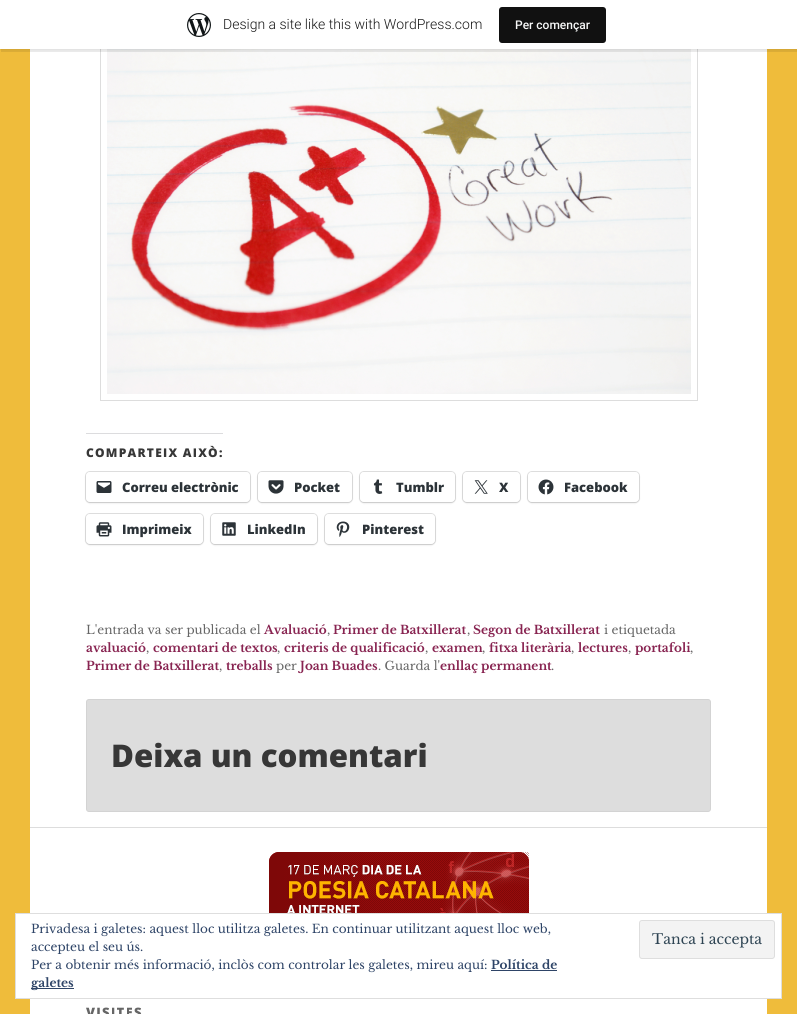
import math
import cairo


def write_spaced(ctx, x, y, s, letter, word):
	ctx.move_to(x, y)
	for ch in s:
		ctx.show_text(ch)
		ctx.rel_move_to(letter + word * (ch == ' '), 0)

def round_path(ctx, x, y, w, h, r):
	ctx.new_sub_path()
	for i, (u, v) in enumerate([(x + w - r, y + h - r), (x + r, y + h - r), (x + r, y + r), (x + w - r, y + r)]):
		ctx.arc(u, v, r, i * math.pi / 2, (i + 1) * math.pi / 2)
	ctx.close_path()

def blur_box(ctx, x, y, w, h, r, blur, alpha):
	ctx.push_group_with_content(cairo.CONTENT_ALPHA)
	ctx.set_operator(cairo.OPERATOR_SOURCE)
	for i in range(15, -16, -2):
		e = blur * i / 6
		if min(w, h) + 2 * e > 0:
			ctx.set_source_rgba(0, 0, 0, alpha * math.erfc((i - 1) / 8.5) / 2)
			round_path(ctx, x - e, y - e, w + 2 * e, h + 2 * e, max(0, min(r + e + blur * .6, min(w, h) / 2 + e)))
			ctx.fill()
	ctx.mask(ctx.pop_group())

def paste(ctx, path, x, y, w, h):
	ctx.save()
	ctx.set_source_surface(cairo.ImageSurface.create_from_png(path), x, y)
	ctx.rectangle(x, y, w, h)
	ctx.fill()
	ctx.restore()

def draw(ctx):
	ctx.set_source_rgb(0.937, 0.737, 0.231)
	ctx.paint()
	ctx.set_source_rgb(1, 1, 1)
	ctx.rectangle(30, 49, 737, 965)
	ctx.fill()
	ctx.rectangle(100.5, -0.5, 597, 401)
	ctx.set_source_rgb(0.867, 0.867, 0.867)
	ctx.set_line_width(1)
	ctx.stroke()
	paste(ctx, 'media/2.png', 107, 49, 584, 345)
	ctx.set_source_rgb(0, 0, 0)
	blur_box(ctx, 0, 1, 797, 49, 0, 1, 0.05)
	ctx.set_source_rgba(0, 0, 0, 0.08)
	ctx.new_path()
	ctx.move_to(1, 49)
	ctx.line_to(1, 52)
	ctx.line_to(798, 52)
	ctx.line_to(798, 3)
	ctx.line_to(797, 3)
	ctx.line_to(797, 49)
	ctx.close_path()
	ctx.fill()
	ctx.set_source_rgb(1, 1, 1)
	ctx.rectangle(0, 0, 797, 49)
	ctx.fill()
	paste(ctx, 'media/1.png', 187, 13, 24, 24)
	ctx.select_font_face('Roboto Light')
	ctx.set_font_size(14)
	ctx.set_source_rgb(0.09, 0.09, 0.09)
	ctx.move_to(223, 29)
	ctx.show_text('Design a site like this with WordPress.com')
	ctx.set_source_rgb(0.067, 0.067, 0.067)
	round_path(ctx, 499, 7, 107, 36, 3)
	ctx.fill()
	ctx.select_font_face('Roboto Medium')
	ctx.set_font_size(12)
	ctx.set_source_rgb(0.965, 0.969, 0.969)
	ctx.move_to(515, 29)
	ctx.show_text('Per començar')
	ctx.set_source_rgb(0.863, 0.863, 0.871)
	ctx.rectangle(86, 433, 137, 1)
	ctx.fill()
	ctx.select_font_face('Open Sans ExtraBold')
	ctx.set_source_rgb(0.216, 0.216, 0.216)
	write_spaced(ctx, 86, 457, 'COMPARTEIX AIXÒ:', 1.25, 0)
	round_path(ctx, 85.5, 471.5, 165, 31, 4.5)
	ctx.set_source_rgb(0.878, 0.878, 0.878)
	ctx.stroke()
	ctx.set_source_rgb(0, 0, 0)
	blur_box(ctx, 86, 473, 164, 30, 4, 1, 0.12)
	ctx.set_source_rgb(1, 1, 1)
	round_path(ctx, 86, 472, 164, 30, 4)
	ctx.fill()
	paste(ctx, 'media/3.png', 96, 481, 16, 12)
	ctx.set_font_size(13)
	ctx.set_source_rgb(0.173, 0.2, 0.22)
	ctx.move_to(122, 492)
	ctx.show_text('Correu electrònic')
	round_path(ctx, 257.5, 471.5, 95, 31, 4.5)
	ctx.set_source_rgb(0.878, 0.878, 0.878)
	ctx.stroke()
	ctx.set_source_rgb(0, 0, 0)
	blur_box(ctx, 258, 473, 94, 30, 4, 1, 0.12)
	ctx.set_source_rgb(1, 1, 1)
	round_path(ctx, 258, 472, 94, 30, 4)
	ctx.fill()
	paste(ctx, 'media/4.png', 268, 480, 16, 14)
	ctx.set_source_rgb(0.173, 0.2, 0.22)
	ctx.move_to(294, 492)
	ctx.show_text('Pocket')
	round_path(ctx, 359.5, 471.5, 96, 31, 4.5)
	ctx.set_source_rgb(0.878, 0.878, 0.878)
	ctx.stroke()
	ctx.set_source_rgb(0, 0, 0)
	blur_box(ctx, 360, 473, 95, 30, 4, 1, 0.12)
	ctx.set_source_rgb(1, 1, 1)
	round_path(ctx, 360, 472, 95, 30, 4)
	ctx.fill()
	paste(ctx, 'media/5.png', 373, 479, 10, 15)
	ctx.set_source_rgb(0.173, 0.2, 0.22)
	ctx.move_to(396, 492)
	ctx.show_text('Tumblr')
	round_path(ctx, 462.5, 471.5, 58, 31, 4.5)
	ctx.set_source_rgb(0.878, 0.878, 0.878)
	ctx.stroke()
	ctx.set_source_rgb(0, 0, 0)
	blur_box(ctx, 463, 473, 57, 30, 4, 1, 0.12)
	ctx.set_source_rgb(1, 1, 1)
	round_path(ctx, 463, 472, 57, 30, 4)
	ctx.fill()
	paste(ctx, 'media/6.png', 474, 480, 14, 14)
	ctx.set_source_rgb(0.173, 0.2, 0.22)
	ctx.move_to(499, 492)
	ctx.show_text('X')
	round_path(ctx, 527.5, 471.5, 112, 31, 4.5)
	ctx.set_source_rgb(0.878, 0.878, 0.878)
	ctx.stroke()
	ctx.set_source_rgb(0, 0, 0)
	blur_box(ctx, 528, 473, 111, 30, 4, 1, 0.12)
	ctx.set_source_rgb(1, 1, 1)
	round_path(ctx, 528, 472, 111, 30, 4)
	ctx.fill()
	paste(ctx, 'media/7.png', 538, 479, 16, 16)
	ctx.set_source_rgb(0.173, 0.2, 0.22)
	ctx.move_to(564, 492)
	ctx.show_text('Facebook')
	round_path(ctx, 85.5, 513.5, 118, 31, 4.5)
	ctx.set_source_rgb(0.878, 0.878, 0.878)
	ctx.stroke()
	ctx.set_source_rgb(0, 0, 0)
	blur_box(ctx, 86, 515, 117, 30, 4, 1, 0.12)
	ctx.set_source_rgb(1, 1, 1)
	round_path(ctx, 86, 514, 117, 30, 4)
	ctx.fill()
	paste(ctx, 'media/8.png', 96, 522, 16, 15)
	ctx.set_source_rgb(0.173, 0.2, 0.22)
	ctx.move_to(122, 534)
	ctx.show_text('Imprimeix')
	round_path(ctx, 210.5, 513.5, 107, 31, 4.5)
	ctx.set_source_rgb(0.878, 0.878, 0.878)
	ctx.stroke()
	ctx.set_source_rgb(0, 0, 0)
	blur_box(ctx, 211, 515, 106, 30, 4, 1, 0.12)
	ctx.set_source_rgb(1, 1, 1)
	round_path(ctx, 211, 514, 106, 30, 4)
	ctx.fill()
	paste(ctx, 'media/9.png', 222, 522, 14, 14)
	ctx.set_source_rgb(0.173, 0.2, 0.22)
	ctx.move_to(247, 534)
	ctx.show_text('LinkedIn')
	round_path(ctx, 324.5, 513.5, 111, 31, 4.5)
	ctx.set_source_rgb(0.878, 0.878, 0.878)
	ctx.stroke()
	ctx.set_source_rgb(0, 0, 0)
	blur_box(ctx, 325, 515, 110, 30, 4, 1, 0.12)
	ctx.set_source_rgb(1, 1, 1)
	round_path(ctx, 325, 514, 110, 30, 4)
	ctx.fill()
	paste(ctx, 'media/10.png', 336, 521, 14, 16)
	ctx.set_source_rgb(0.173, 0.2, 0.22)
	ctx.move_to(362, 534)
	ctx.show_text('Pinterest')
	ctx.select_font_face('Libre Baskerville')
	ctx.set_font_size(12)
	ctx.set_source_rgb(0.4, 0.4, 0.4)
	ctx.move_to(86, 634)
	ctx.show_text('L\'entrada va ser publicada el')
	ctx.select_font_face('Libre Baskerville', cairo.FONT_SLANT_NORMAL, cairo.FONT_WEIGHT_BOLD)
	ctx.set_source_rgb(0.533, 0.141, 0.318)
	ctx.move_to(264, 634)
	ctx.show_text('Avaluació')
	ctx.select_font_face('Libre Baskerville')
	ctx.set_source_rgb(0.4, 0.4, 0.4)
	ctx.move_to(327, 634)
	ctx.show_text(',')
	ctx.select_font_face('Libre Baskerville', cairo.FONT_SLANT_NORMAL, cairo.FONT_WEIGHT_BOLD)
	ctx.set_source_rgb(0.533, 0.141, 0.318)
	ctx.move_to(333, 634)
	ctx.show_text('Primer de Batxillerat')
	ctx.select_font_face('Libre Baskerville')
	ctx.set_source_rgb(0.4, 0.4, 0.4)
	ctx.move_to(467, 634)
	ctx.show_text(',')
	ctx.select_font_face('Libre Baskerville', cairo.FONT_SLANT_NORMAL, cairo.FONT_WEIGHT_BOLD)
	ctx.set_source_rgb(0.533, 0.141, 0.318)
	ctx.move_to(473, 634)
	ctx.show_text('Segon de Batxillerat')
	ctx.select_font_face('Libre Baskerville')
	ctx.set_source_rgb(0.4, 0.4, 0.4)
	ctx.move_to(604, 634)
	ctx.show_text('i etiquetada')
	ctx.select_font_face('Libre Baskerville', cairo.FONT_SLANT_NORMAL, cairo.FONT_WEIGHT_BOLD)
	ctx.set_source_rgb(0.533, 0.141, 0.318)
	ctx.move_to(86, 652)
	ctx.show_text('avaluació')
	ctx.select_font_face('Libre Baskerville')
	ctx.set_source_rgb(0.4, 0.4, 0.4)
	ctx.move_to(146, 652)
	ctx.show_text(',')
	ctx.select_font_face('Libre Baskerville', cairo.FONT_SLANT_NORMAL, cairo.FONT_WEIGHT_BOLD)
	ctx.set_source_rgb(0.533, 0.141, 0.318)
	ctx.move_to(153, 652)
	ctx.show_text('comentari de textos')
	ctx.select_font_face('Libre Baskerville')
	ctx.set_source_rgb(0.4, 0.4, 0.4)
	ctx.move_to(277, 652)
	ctx.show_text(',')
	ctx.select_font_face('Libre Baskerville', cairo.FONT_SLANT_NORMAL, cairo.FONT_WEIGHT_BOLD)
	ctx.set_source_rgb(0.533, 0.141, 0.318)
	ctx.move_to(284, 652)
	ctx.show_text('criteris de qualificació')
	ctx.select_font_face('Libre Baskerville')
	ctx.set_source_rgb(0.4, 0.4, 0.4)
	ctx.move_to(425, 652)
	ctx.show_text(',')
	ctx.select_font_face('Libre Baskerville', cairo.FONT_SLANT_NORMAL, cairo.FONT_WEIGHT_BOLD)
	ctx.set_source_rgb(0.533, 0.141, 0.318)
	ctx.move_to(432, 652)
	ctx.show_text('examen')
	ctx.select_font_face('Libre Baskerville')
	ctx.set_source_rgb(0.4, 0.4, 0.4)
	ctx.move_to(482, 652)
	ctx.show_text(',')
	ctx.select_font_face('Libre Baskerville', cairo.FONT_SLANT_NORMAL, cairo.FONT_WEIGHT_BOLD)
	ctx.set_source_rgb(0.533, 0.141, 0.318)
	ctx.move_to(489, 652)
	ctx.show_text('fitxa literària')
	ctx.select_font_face('Libre Baskerville')
	ctx.set_source_rgb(0.4, 0.4, 0.4)
	ctx.move_to(571, 652)
	ctx.show_text(',')
	ctx.select_font_face('Libre Baskerville', cairo.FONT_SLANT_NORMAL, cairo.FONT_WEIGHT_BOLD)
	ctx.set_source_rgb(0.533, 0.141, 0.318)
	ctx.move_to(578, 652)
	ctx.show_text('lectures')
	ctx.select_font_face('Libre Baskerville')
	ctx.set_source_rgb(0.4, 0.4, 0.4)
	ctx.move_to(628, 652)
	ctx.show_text(',')
	ctx.select_font_face('Libre Baskerville', cairo.FONT_SLANT_NORMAL, cairo.FONT_WEIGHT_BOLD)
	ctx.set_source_rgb(0.533, 0.141, 0.318)
	ctx.move_to(635, 652)
	ctx.show_text('portafoli')
	ctx.select_font_face('Libre Baskerville')
	ctx.set_source_rgb(0.4, 0.4, 0.4)
	ctx.move_to(690, 652)
	ctx.show_text(',')
	ctx.select_font_face('Libre Baskerville', cairo.FONT_SLANT_NORMAL, cairo.FONT_WEIGHT_BOLD)
	ctx.set_source_rgb(0.533, 0.141, 0.318)
	ctx.move_to(86, 670)
	ctx.show_text('Primer de Batxillerat')
	ctx.select_font_face('Libre Baskerville')
	ctx.set_source_rgb(0.4, 0.4, 0.4)
	ctx.move_to(219, 670)
	ctx.show_text(',')
	ctx.select_font_face('Libre Baskerville', cairo.FONT_SLANT_NORMAL, cairo.FONT_WEIGHT_BOLD)
	ctx.set_source_rgb(0.533, 0.141, 0.318)
	ctx.move_to(226, 670)
	ctx.show_text('treballs')
	ctx.select_font_face('Libre Baskerville')
	ctx.set_source_rgb(0.4, 0.4, 0.4)
	ctx.move_to(276, 670)
	ctx.show_text('per')
	ctx.select_font_face('Libre Baskerville', cairo.FONT_SLANT_NORMAL, cairo.FONT_WEIGHT_BOLD)
	ctx.set_source_rgb(0.533, 0.141, 0.318)
	ctx.move_to(300, 670)
	ctx.show_text('Joan Buades')
	ctx.select_font_face('Libre Baskerville')
	ctx.set_source_rgb(0.4, 0.4, 0.4)
	ctx.move_to(378, 670)
	ctx.show_text('. Guarda l\'')
	ctx.select_font_face('Libre Baskerville', cairo.FONT_SLANT_NORMAL, cairo.FONT_WEIGHT_BOLD)
	ctx.set_source_rgb(0.533, 0.141, 0.318)
	ctx.move_to(440, 670)
	ctx.show_text('enllaç permanent')
	ctx.select_font_face('Libre Baskerville')
	ctx.set_source_rgb(0.4, 0.4, 0.4)
	ctx.move_to(551, 670)
	ctx.show_text('.')
	ctx.set_source_rgb(0.867, 0.867, 0.867)
	round_path(ctx, 86.5, 699.5, 624, 112, 2.5)
	ctx.fill_preserve()
	ctx.set_source_rgb(0.827, 0.827, 0.827)
	ctx.stroke()
	ctx.select_font_face('Open Sans ExtraBold')
	ctx.set_font_size(31.25)
	ctx.set_source_rgb(0.216, 0.216, 0.216)
	ctx.move_to(111, 767)
	ctx.show_text('Deixa un comentari')
	ctx.set_source_rgb(0.867, 0.867, 0.867)
	ctx.rectangle(30, 827, 737, 1)
	ctx.fill()
	paste(ctx, 'media/11.png', 269, 852, 260, 61)
	ctx.set_font_size(13)
	ctx.set_source_rgb(0.4, 0.4, 0.4)
	write_spaced(ctx, 86, 1017, 'VISITES', 1.25, 0)
	ctx.set_source_rgb(1, 1, 1)
	ctx.rectangle(15.5, 913.5, 766, 85)
	ctx.fill_preserve()
	ctx.set_source_rgb(0.871, 0.871, 0.871)
	ctx.stroke()
	ctx.select_font_face('Libre Baskerville')
	ctx.set_font_size(12)
	ctx.set_source_rgb(0.18, 0.267, 0.404)
	ctx.move_to(31, 933)
	ctx.show_text('Privadesa i galetes: aquest lloc utilitza galetes. En continuar utilitzant aquest lloc web,')
	ctx.move_to(31, 951)
	ctx.show_text('accepteu el seu ús.')
	ctx.set_source_rgb(0.953, 0.953, 0.953)
	round_path(ctx, 639.5, 920.5, 135, 38, 2.5)
	ctx.fill_preserve()
	ctx.set_source_rgb(0.871, 0.871, 0.871)
	ctx.stroke()
	ctx.set_font_size(14)
	ctx.set_source_rgb(0.18, 0.267, 0.325)
	ctx.move_to(652, 944)
	ctx.show_text('Tanca i accepta')
	ctx.set_font_size(12)
	ctx.set_source_rgb(0.18, 0.267, 0.404)
	ctx.move_to(31, 969)
	ctx.show_text('Per a obtenir més informació, inclòs com controlar les galetes, mireu aquí:')
	ctx.select_font_face('Libre Baskerville', cairo.FONT_SLANT_NORMAL, cairo.FONT_WEIGHT_BOLD)
	ctx.move_to(491, 969)
	ctx.show_text('Política de')
	ctx.rectangle(491, 970, 66, 1)
	ctx.fill()
	ctx.rectangle(31, 988, 43, 1)
	ctx.fill()
	ctx.move_to(31, 987)
	ctx.show_text('galetes')


surface = cairo.ImageSurface(cairo.FORMAT_RGB24, 797, 1014)
ctx = cairo.Context(surface)
options = cairo.FontOptions()
options.set_hint_metrics(cairo.HINT_METRICS_OFF)
options.set_hint_style(cairo.HINT_STYLE_NONE)
ctx.set_font_options(options)
ctx.set_miter_limit(4)
draw(ctx)
surface.write_to_png('image.png')
